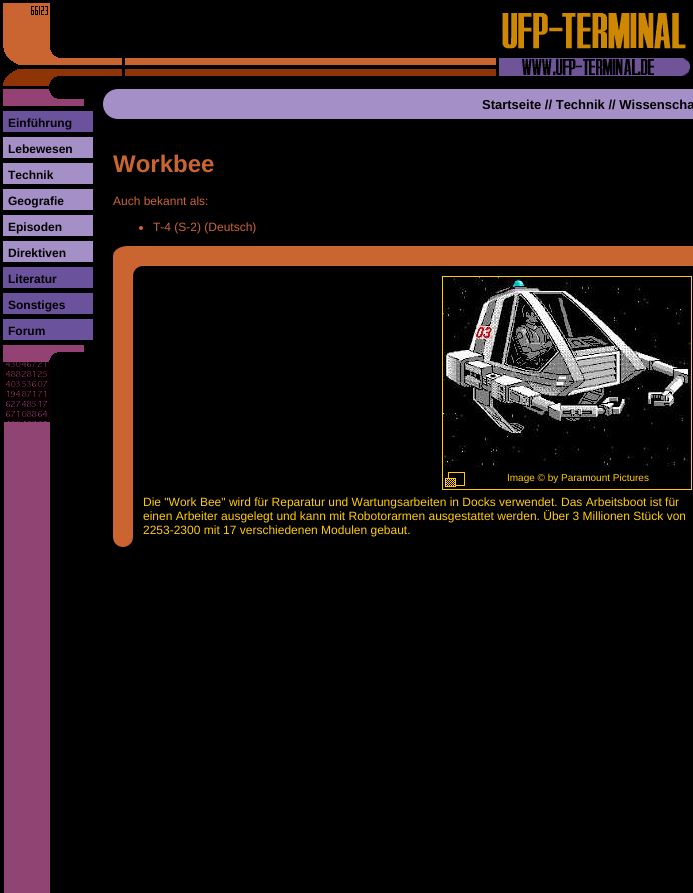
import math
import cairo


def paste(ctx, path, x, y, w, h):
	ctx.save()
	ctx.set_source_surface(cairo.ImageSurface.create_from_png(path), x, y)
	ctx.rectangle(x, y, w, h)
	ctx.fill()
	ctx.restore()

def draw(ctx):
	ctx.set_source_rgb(0, 0, 0)
	ctx.paint()
	paste(ctx, 'media/1.png', 125, 58, 371, 18)
	paste(ctx, 'media/2.png', 3, 3, 122, 83)
	paste(ctx, 'media/3.png', 496, 13, 194, 63)
	ctx.set_source_rgb(0.565, 0.267, 0.455)
	ctx.rectangle(4, 422, 46, 471)
	ctx.fill()
	paste(ctx, 'media/4.png', 3, 89, 81, 17)
	ctx.set_source_rgb(0.42, 0.322, 0.612)
	ctx.rectangle(3, 111, 90, 21)
	ctx.fill()
	ctx.select_font_face('Liberation Sans', cairo.FONT_SLANT_NORMAL, cairo.FONT_WEIGHT_BOLD)
	ctx.set_font_size(12)
	ctx.set_source_rgb(0, 0, 0)
	ctx.move_to(8, 127)
	ctx.show_text('Einführung')
	ctx.set_source_rgb(0.647, 0.561, 0.78)
	ctx.rectangle(3, 137, 90, 21)
	ctx.fill()
	ctx.set_source_rgb(0, 0, 0)
	ctx.move_to(8, 153)
	ctx.show_text('Lebewesen')
	ctx.set_source_rgb(0.647, 0.561, 0.78)
	ctx.rectangle(3, 163, 90, 21)
	ctx.fill()
	ctx.set_source_rgb(0, 0, 0)
	ctx.move_to(8, 179)
	ctx.show_text('Technik')
	ctx.set_source_rgb(0.647, 0.561, 0.78)
	ctx.rectangle(3, 189, 90, 21)
	ctx.fill()
	ctx.set_source_rgb(0, 0, 0)
	ctx.move_to(8, 205)
	ctx.show_text('Geografie')
	ctx.set_source_rgb(0.647, 0.561, 0.78)
	ctx.rectangle(3, 215, 90, 21)
	ctx.fill()
	ctx.set_source_rgb(0, 0, 0)
	ctx.move_to(8, 231)
	ctx.show_text('Episoden')
	ctx.set_source_rgb(0.647, 0.561, 0.78)
	ctx.rectangle(3, 241, 90, 21)
	ctx.fill()
	ctx.set_source_rgb(0, 0, 0)
	ctx.move_to(8, 257)
	ctx.show_text('Direktiven')
	ctx.set_source_rgb(0.42, 0.322, 0.612)
	ctx.rectangle(3, 267, 90, 21)
	ctx.fill()
	ctx.set_source_rgb(0, 0, 0)
	ctx.move_to(8, 283)
	ctx.show_text('Literatur')
	ctx.set_source_rgb(0.42, 0.322, 0.612)
	ctx.rectangle(3, 293, 90, 21)
	ctx.fill()
	ctx.set_source_rgb(0, 0, 0)
	ctx.move_to(8, 309)
	ctx.show_text('Sonstiges')
	ctx.set_source_rgb(0.42, 0.322, 0.612)
	ctx.rectangle(3, 319, 90, 21)
	ctx.fill()
	ctx.set_source_rgb(0, 0, 0)
	ctx.move_to(8, 335)
	ctx.show_text('Forum')
	paste(ctx, 'media/5.png', 3, 345, 81, 17)
	paste(ctx, 'media/6.png', 3, 362, 47, 60)
	ctx.set_source_rgb(0.647, 0.561, 0.78)
	ctx.new_path()
	ctx.move_to(118, 89)
	ctx.line_to(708, 89)
	ctx.line_to(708, 119)
	ctx.line_to(118, 119)
	ctx.curve_to(109.5, 119, 103, 112.5, 103, 104)
	ctx.curve_to(103, 95.5, 109.5, 89, 118, 89)
	ctx.close_path()
	ctx.fill()
	ctx.set_font_size(13)
	ctx.set_source_rgb(0, 0, 0)
	ctx.move_to(482, 109)
	ctx.show_text('Startseite // Technik // Wissenscha')
	ctx.set_font_size(24)
	ctx.set_source_rgb(0.792, 0.396, 0.196)
	ctx.move_to(113, 172)
	ctx.show_text('Workbee')
	ctx.select_font_face('Liberation Sans')
	ctx.set_font_size(12)
	ctx.move_to(113, 205)
	ctx.show_text('Auch bekannt als:')
	ctx.new_path()
	ctx.arc(141, 228, 2, 0, 2 * math.pi)
	ctx.fill()
	ctx.move_to(153, 231)
	ctx.show_text('T-4 (S-2) (Deutsch)')
	ctx.rectangle(113, 246, 580, 20)
	ctx.fill()
	paste(ctx, 'media/7.png', 113, 246, 14, 10)
	ctx.rectangle(113, 266, 30, 272)
	ctx.fill()
	paste(ctx, 'media/8.png', 113, 538, 20, 9)
	ctx.set_source_rgb(0, 0, 0)
	ctx.new_path()
	ctx.move_to(143, 266)
	ctx.line_to(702, 266)
	ctx.line_to(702, 547)
	ctx.line_to(133, 547)
	ctx.line_to(133, 276)
	ctx.curve_to(133, 270.5, 137.5, 266, 143, 266)
	ctx.close_path()
	ctx.fill()
	ctx.rectangle(442.5, 276.5, 249, 213)
	ctx.set_source_rgb(1, 0.8, 0)
	ctx.set_line_width(1)
	ctx.stroke()
	paste(ctx, 'media/9.png', 443, 277, 248, 190)
	paste(ctx, 'media/10.png', 445, 472, 20, 15)
	ctx.set_font_size(10)
	ctx.move_to(507, 481)
	ctx.show_text('Image © by Paramount Pictures')
	ctx.set_font_size(12)
	for x, y, s in [
		(143, 506, 'Die "Work Bee" wird für Reparatur und Wartungsarbeiten in Docks verwendet. Das Arbeitsboot ist für'),
		(143, 520, 'einen Arbeiter ausgelegt und kann mit Robotorarmen ausgestattet werden. Über 3 Millionen Stück von'),
		(143, 534, '2253-2300 mit 17 verschiedenen Modulen gebaut.'),
	]:
		ctx.move_to(x, y)
		ctx.show_text(s)


surface = cairo.ImageSurface(cairo.FORMAT_RGB24, 693, 893)
ctx = cairo.Context(surface)
options = cairo.FontOptions()
options.set_hint_metrics(cairo.HINT_METRICS_OFF)
options.set_hint_style(cairo.HINT_STYLE_NONE)
ctx.set_font_options(options)
ctx.set_miter_limit(4)
draw(ctx)
surface.write_to_png('image.png')
